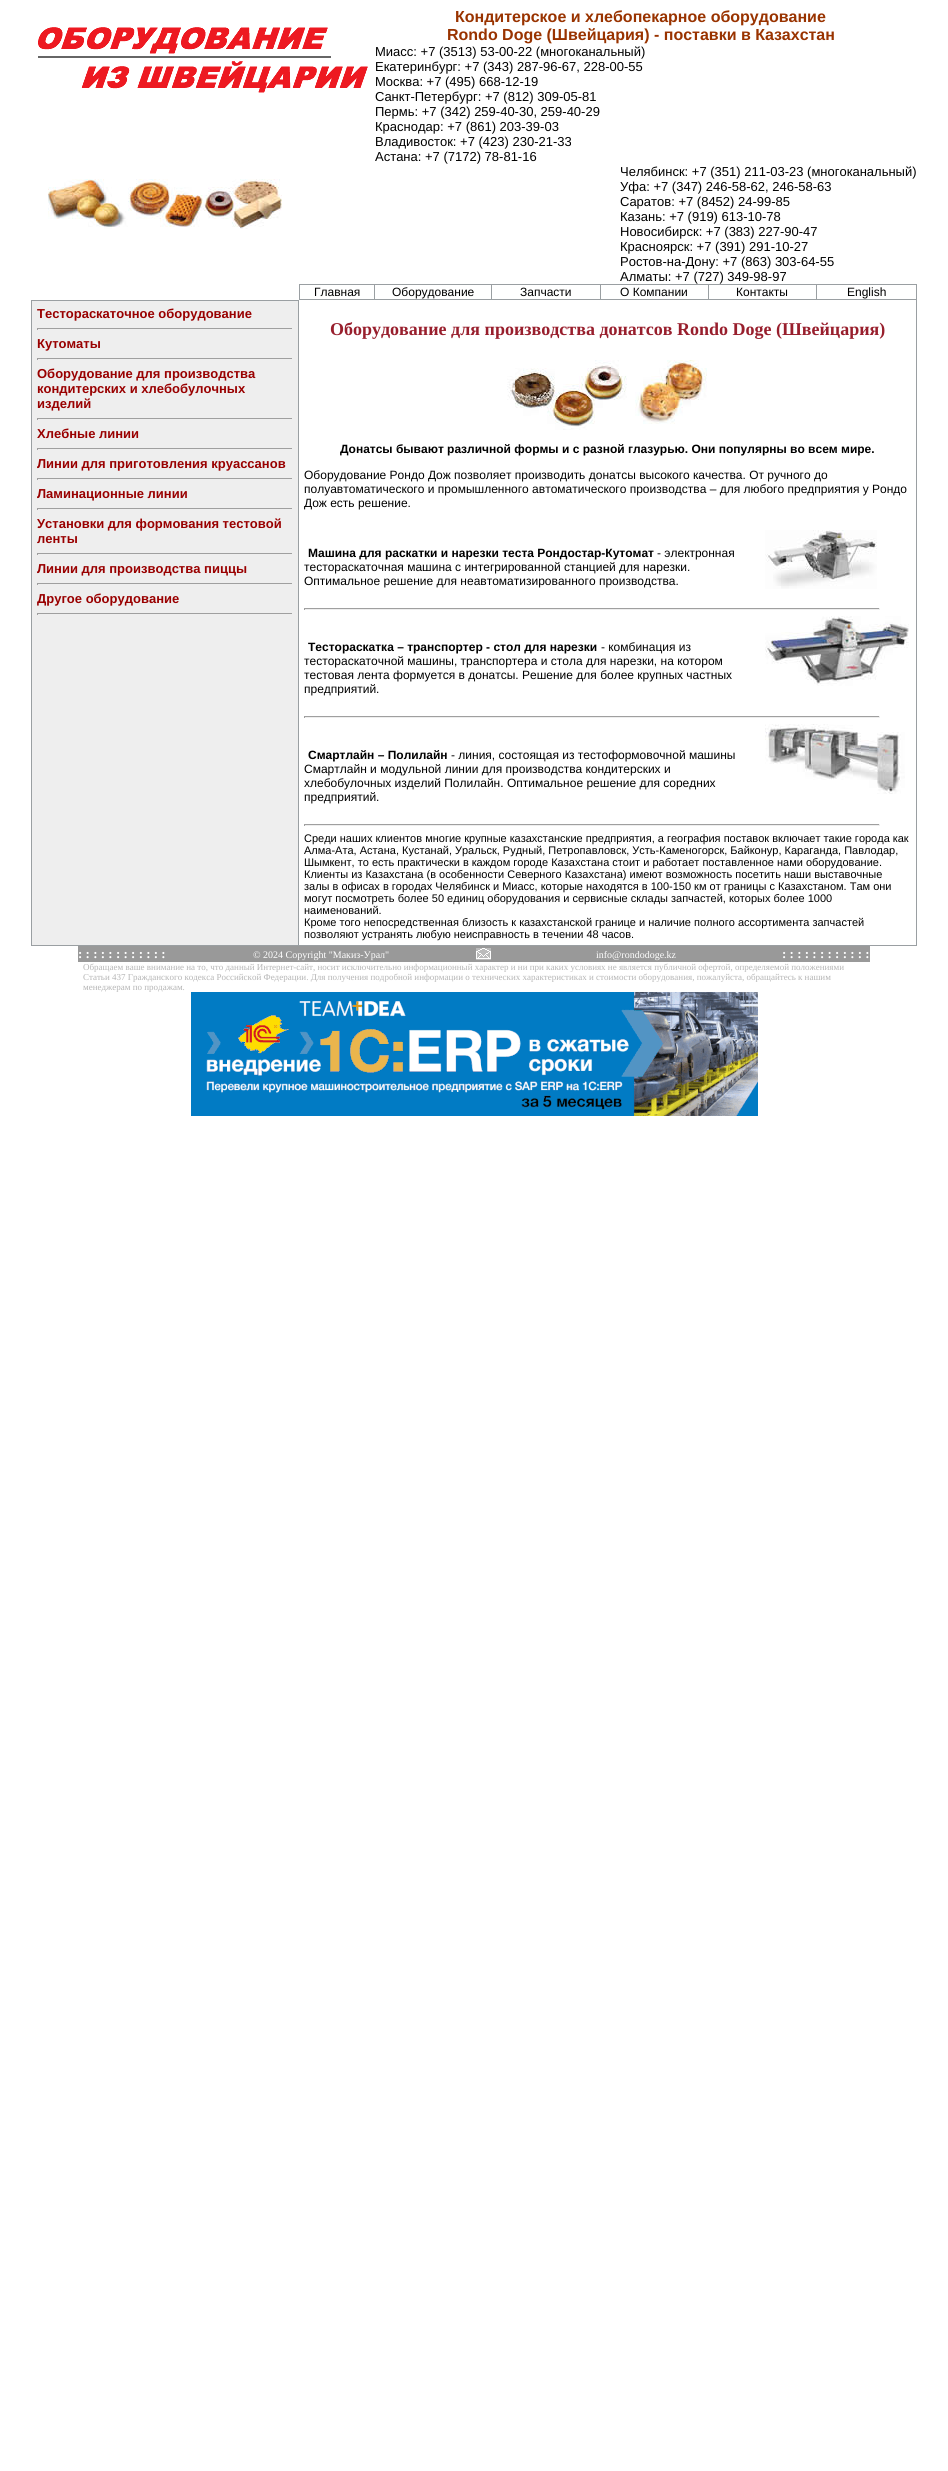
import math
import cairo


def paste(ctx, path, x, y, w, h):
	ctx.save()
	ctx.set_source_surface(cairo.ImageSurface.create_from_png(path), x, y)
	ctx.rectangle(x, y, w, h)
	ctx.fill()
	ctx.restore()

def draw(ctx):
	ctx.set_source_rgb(1, 1, 1)
	ctx.paint()
	paste(ctx, 'media/1.png', 48, 179, 234, 50)
	paste(ctx, 'media/2.png', 38, 27, 330, 66)
	ctx.select_font_face('Liberation Sans', cairo.FONT_SLANT_NORMAL, cairo.FONT_WEIGHT_BOLD)
	ctx.set_font_size(16)
	ctx.set_source_rgb(0.6, 0.2, 0)
	ctx.move_to(455, 22)
	ctx.show_text('Кондитерское и хлебопекарное оборудование')
	ctx.move_to(447, 40)
	ctx.show_text('Rondo Doge (Швейцария) - поставки в Казахстан')
	ctx.select_font_face('Liberation Sans')
	ctx.set_font_size(13)
	ctx.set_source_rgb(0, 0, 0)
	for x, y, s in [
		(375, 56, 'Миасс: +7 (3513) 53-00-22 (многоканальный)'),
		(375, 71, 'Екатеринбург: +7 (343) 287-96-67, 228-00-55'),
		(375, 86, 'Москва: +7 (495) 668-12-19'),
		(375, 101, 'Санкт-Петербург: +7 (812) 309-05-81'),
		(375, 116, 'Пермь: +7 (342) 259-40-30, 259-40-29'),
		(375, 131, 'Краснодар: +7 (861) 203-39-03'),
		(375, 146, 'Владивосток: +7 (423) 230-21-33'),
		(375, 161, 'Астана: +7 (7172) 78-81-16'),
		(620, 176, 'Челябинск: +7 (351) 211-03-23 (многоканальный)'),
		(620, 191, 'Уфа: +7 (347) 246-58-62, 246-58-63'),
		(620, 206, 'Саратов: +7 (8452) 24-99-85'),
		(620, 221, 'Казань: +7 (919) 613-10-78'),
		(620, 236, 'Новосибирск: +7 (383) 227-90-47'),
		(620, 251, 'Красноярск: +7 (391) 291-10-27'),
		(620, 266, 'Ростов-на-Дону: +7 (863) 303-64-55'),
		(620, 281, 'Алматы: +7 (727) 349-98-97'),
	]:
		ctx.move_to(x, y)
		ctx.show_text(s)
	ctx.rectangle(299.5, 284.5, 75, 15)
	ctx.set_source_rgb(0.604, 0.624, 0.635)
	ctx.set_line_width(1)
	ctx.stroke()
	ctx.set_font_size(12)
	ctx.set_source_rgb(0, 0, 0)
	ctx.move_to(314, 296)
	ctx.show_text('Главная')
	ctx.set_source_rgb(0.604, 0.624, 0.635)
	ctx.rectangle(375, 284, 542, 1)
	ctx.rectangle(491, 284, 1, 16)
	ctx.rectangle(375, 299, 117, 1)
	ctx.fill()
	ctx.set_source_rgb(0, 0, 0)
	ctx.move_to(392, 296)
	ctx.show_text('Оборудование')
	ctx.set_source_rgb(0.604, 0.624, 0.635)
	ctx.rectangle(600, 284, 1, 16)
	ctx.fill()
	ctx.rectangle(492, 299, 109, 1)
	ctx.fill()
	ctx.set_source_rgb(0, 0, 0)
	ctx.move_to(520, 296)
	ctx.show_text('Запчасти')
	ctx.set_source_rgb(0.604, 0.624, 0.635)
	ctx.rectangle(708, 284, 1, 16)
	ctx.fill()
	ctx.rectangle(601, 299, 108, 1)
	ctx.fill()
	ctx.set_source_rgb(0, 0, 0)
	ctx.move_to(620, 296)
	ctx.show_text('О Компании')
	ctx.set_source_rgb(0.604, 0.624, 0.635)
	ctx.rectangle(816, 284, 1, 16)
	ctx.fill()
	ctx.rectangle(709, 299, 108, 1)
	ctx.fill()
	ctx.set_source_rgb(0, 0, 0)
	ctx.move_to(736, 296)
	ctx.show_text('Контакты')
	ctx.set_source_rgb(0.604, 0.624, 0.635)
	ctx.rectangle(916, 284, 1, 662)
	ctx.fill()
	ctx.rectangle(817, 299, 100, 1)
	ctx.fill()
	ctx.set_source_rgb(0, 0, 0)
	ctx.move_to(847, 296)
	ctx.show_text('English')
	ctx.set_source_rgb(0.933, 0.933, 0.933)
	ctx.rectangle(31.5, 300.5, 267, 645)
	ctx.fill_preserve()
	ctx.set_source_rgb(0.604, 0.624, 0.635)
	ctx.stroke()
	ctx.select_font_face('Liberation Sans', cairo.FONT_SLANT_NORMAL, cairo.FONT_WEIGHT_BOLD)
	ctx.set_font_size(13)
	ctx.set_source_rgb(0.6, 0, 0)
	ctx.move_to(37, 318)
	ctx.show_text('Тестораскаточное оборудование')
	ctx.set_source_rgb(0.624, 0.624, 0.624)
	ctx.rectangle(37, 328, 256, 1)
	ctx.fill()
	ctx.set_source_rgb(0.933, 0.933, 0.933)
	ctx.rectangle(292, 328, 1, 2)
	ctx.fill()
	ctx.set_source_rgb(0.624, 0.624, 0.624)
	ctx.rectangle(37, 328, 1, 2)
	ctx.fill()
	ctx.set_source_rgb(0.6, 0, 0)
	ctx.move_to(37, 348)
	ctx.show_text('Кутоматы')
	ctx.set_source_rgb(0.624, 0.624, 0.624)
	ctx.rectangle(37, 358, 256, 1)
	ctx.fill()
	ctx.set_source_rgb(0.933, 0.933, 0.933)
	ctx.rectangle(292, 358, 1, 2)
	ctx.fill()
	ctx.set_source_rgb(0.624, 0.624, 0.624)
	ctx.rectangle(37, 358, 1, 2)
	ctx.fill()
	ctx.set_source_rgb(0.6, 0, 0)
	for x, y, s in [
		(37, 378, 'Оборудование для производства'),
		(37, 393, 'кондитерских и хлебобулочных'),
		(37, 408, 'изделий'),
	]:
		ctx.move_to(x, y)
		ctx.show_text(s)
	ctx.set_source_rgb(0.624, 0.624, 0.624)
	ctx.rectangle(37, 418, 256, 1)
	ctx.fill()
	ctx.set_source_rgb(0.933, 0.933, 0.933)
	ctx.rectangle(292, 418, 1, 2)
	ctx.fill()
	ctx.set_source_rgb(0.624, 0.624, 0.624)
	ctx.rectangle(37, 418, 1, 2)
	ctx.fill()
	ctx.set_source_rgb(0.6, 0, 0)
	ctx.move_to(37, 438)
	ctx.show_text('Хлебные линии')
	ctx.set_source_rgb(0.624, 0.624, 0.624)
	ctx.rectangle(37, 448, 256, 1)
	ctx.fill()
	ctx.set_source_rgb(0.933, 0.933, 0.933)
	ctx.rectangle(292, 448, 1, 2)
	ctx.fill()
	ctx.set_source_rgb(0.624, 0.624, 0.624)
	ctx.rectangle(37, 448, 1, 2)
	ctx.fill()
	ctx.set_source_rgb(0.6, 0, 0)
	ctx.move_to(37, 468)
	ctx.show_text('Линии для приготовления круассанов')
	ctx.set_source_rgb(0.624, 0.624, 0.624)
	ctx.rectangle(37, 478, 256, 1)
	ctx.fill()
	ctx.set_source_rgb(0.933, 0.933, 0.933)
	ctx.rectangle(292, 478, 1, 2)
	ctx.fill()
	ctx.set_source_rgb(0.624, 0.624, 0.624)
	ctx.rectangle(37, 478, 1, 2)
	ctx.fill()
	ctx.set_source_rgb(0.6, 0, 0)
	ctx.move_to(37, 498)
	ctx.show_text('Ламинационные линии')
	ctx.set_source_rgb(0.624, 0.624, 0.624)
	ctx.rectangle(37, 508, 256, 1)
	ctx.fill()
	ctx.set_source_rgb(0.933, 0.933, 0.933)
	ctx.rectangle(292, 508, 1, 2)
	ctx.fill()
	ctx.set_source_rgb(0.624, 0.624, 0.624)
	ctx.rectangle(37, 508, 1, 2)
	ctx.fill()
	ctx.set_source_rgb(0.6, 0, 0)
	ctx.move_to(37, 528)
	ctx.show_text('Установки для формования тестовой')
	ctx.move_to(37, 543)
	ctx.show_text('ленты')
	ctx.set_source_rgb(0.624, 0.624, 0.624)
	ctx.rectangle(37, 553, 256, 1)
	ctx.fill()
	ctx.set_source_rgb(0.933, 0.933, 0.933)
	ctx.rectangle(292, 553, 1, 2)
	ctx.fill()
	ctx.set_source_rgb(0.624, 0.624, 0.624)
	ctx.rectangle(37, 553, 1, 2)
	ctx.fill()
	ctx.set_source_rgb(0.6, 0, 0)
	ctx.move_to(37, 573)
	ctx.show_text('Линии для производства пиццы')
	ctx.set_source_rgb(0.624, 0.624, 0.624)
	ctx.rectangle(37, 583, 256, 1)
	ctx.fill()
	ctx.set_source_rgb(0.933, 0.933, 0.933)
	ctx.rectangle(292, 583, 1, 2)
	ctx.fill()
	ctx.set_source_rgb(0.624, 0.624, 0.624)
	ctx.rectangle(37, 583, 1, 2)
	ctx.fill()
	ctx.set_source_rgb(0.6, 0, 0)
	ctx.move_to(37, 603)
	ctx.show_text('Другое оборудование')
	ctx.set_source_rgb(0.624, 0.624, 0.624)
	ctx.rectangle(37, 613, 256, 1)
	ctx.fill()
	ctx.set_source_rgb(0.933, 0.933, 0.933)
	ctx.rectangle(292, 613, 1, 2)
	ctx.fill()
	ctx.set_source_rgb(0.624, 0.624, 0.624)
	ctx.rectangle(37, 613, 1, 2)
	ctx.fill()
	ctx.set_source_rgb(0.604, 0.624, 0.635)
	ctx.rectangle(299, 945, 618, 1)
	ctx.fill()
	ctx.select_font_face('Liberation Serif', cairo.FONT_SLANT_NORMAL, cairo.FONT_WEIGHT_BOLD)
	ctx.set_font_size(18)
	ctx.set_source_rgb(0.596, 0.122, 0.176)
	ctx.move_to(330, 335)
	ctx.show_text('Оборудование для производства донатсов Rondo Doge (Швейцария)')
	paste(ctx, 'media/3.png', 507, 360, 200, 70)
	ctx.select_font_face('Liberation Sans', cairo.FONT_SLANT_NORMAL, cairo.FONT_WEIGHT_BOLD)
	ctx.set_font_size(12)
	ctx.set_source_rgb(0, 0, 0)
	ctx.move_to(340, 453)
	ctx.show_text('Донатсы бывают различной формы и с разной глазурью. Они популярны во всем мире.')
	ctx.select_font_face('Liberation Sans')
	for x, y, s in [
		(304, 479, 'Оборудование Рондо Дож позволяет производить донатсы высокого качества. От ручного до'),
		(304, 493, 'полуавтоматического и промышленного автоматического производства – для любого предприятия у Рондо'),
		(304, 507, 'Дож есть решение.'),
	]:
		ctx.move_to(x, y)
		ctx.show_text(s)
	ctx.select_font_face('Liberation Sans', cairo.FONT_SLANT_NORMAL, cairo.FONT_WEIGHT_BOLD)
	ctx.move_to(308, 557)
	ctx.show_text('Машина для раскатки и нарезки теста Рондостар-Кутомат')
	ctx.select_font_face('Liberation Sans')
	for x, y, s in [
		(657, 557, '- электронная'),
		(304, 571, 'тестораскаточная машина с интегрированной станцией для нарезки.'),
		(304, 585, 'Оптимальное решение для неавтоматизированного производства.'),
	]:
		ctx.move_to(x, y)
		ctx.show_text(s)
	paste(ctx, 'media/4.png', 765, 530, 112, 59)
	ctx.set_source_rgb(0.624, 0.624, 0.624)
	ctx.rectangle(304, 608, 576, 1)
	ctx.fill()
	ctx.set_source_rgb(0.933, 0.933, 0.933)
	ctx.rectangle(879, 608, 1, 2)
	ctx.rectangle(304, 609, 576, 1)
	ctx.fill()
	ctx.set_source_rgb(0.624, 0.624, 0.624)
	ctx.rectangle(304, 608, 1, 2)
	ctx.fill()
	ctx.select_font_face('Liberation Sans', cairo.FONT_SLANT_NORMAL, cairo.FONT_WEIGHT_BOLD)
	ctx.set_source_rgb(0, 0, 0)
	ctx.move_to(308, 651)
	ctx.show_text('Тестораскатка – транспортер - стол для нарезки')
	ctx.select_font_face('Liberation Sans')
	for x, y, s in [
		(601, 651, '- комбинация из'),
		(304, 665, 'тестораскаточной машины, транспортера и стола для нарезки, на котором'),
		(304, 679, 'тестовая лента формуется в донатсы. Решение для более крупных частных'),
		(304, 693, 'предприятий.'),
	]:
		ctx.move_to(x, y)
		ctx.show_text(s)
	paste(ctx, 'media/5.png', 765, 616, 144, 70)
	ctx.set_source_rgb(0.624, 0.624, 0.624)
	ctx.rectangle(304, 716, 576, 1)
	ctx.fill()
	ctx.set_source_rgb(0.933, 0.933, 0.933)
	ctx.rectangle(879, 716, 1, 2)
	ctx.rectangle(304, 717, 576, 1)
	ctx.fill()
	ctx.set_source_rgb(0.624, 0.624, 0.624)
	ctx.rectangle(304, 716, 1, 2)
	ctx.fill()
	ctx.select_font_face('Liberation Sans', cairo.FONT_SLANT_NORMAL, cairo.FONT_WEIGHT_BOLD)
	ctx.set_source_rgb(0, 0, 0)
	ctx.move_to(308, 759)
	ctx.show_text('Смартлайн – Полилайн')
	ctx.select_font_face('Liberation Sans')
	for x, y, s in [
		(451, 759, '- линия, состоящая из тестоформовочной машины'),
		(304, 773, 'Смартлайн и модульной линии для производства кондитерских и'),
		(304, 787, 'хлебобулочных изделий Полилайн. Оптимальное решение для соредних'),
		(304, 801, 'предприятий.'),
	]:
		ctx.move_to(x, y)
		ctx.show_text(s)
	paste(ctx, 'media/6.png', 765, 724, 140, 70)
	ctx.set_source_rgb(0.624, 0.624, 0.624)
	ctx.rectangle(304, 824, 576, 1)
	ctx.fill()
	ctx.set_source_rgb(0.933, 0.933, 0.933)
	ctx.rectangle(879, 824, 1, 2)
	ctx.rectangle(304, 825, 576, 1)
	ctx.fill()
	ctx.set_source_rgb(0.624, 0.624, 0.624)
	ctx.rectangle(304, 824, 1, 2)
	ctx.fill()
	ctx.set_font_size(11)
	ctx.set_source_rgb(0, 0, 0)
	for x, y, s in [
		(304, 842, 'Среди наших клиентов многие крупные казахстанские предприятия, а география поставок включает такие города как'),
		(304, 854, 'Алма-Ата, Астана, Кустанай, Уральск, Рудный, Петропавловск, Усть-Каменогорск, Байконур, Караганда, Павлодар,'),
		(304, 866, 'Шымкент, то есть практически в каждом городе Казахстана стоит и работает поставленное нами оборудование.'),
		(304, 878, 'Клиенты из Казахстана (в особенности Северного Казахстана) имеют возможность посетить наши выставочные'),
		(304, 890, 'залы в офисах в городах Челябинск и Миасс, которые находятся в 100-150 км от границы с Казахстаном. Там они'),
		(304, 902, 'могут посмотреть более 50 единиц оборудования и сервисные склады запчастей, которых более 1000'),
		(304, 914, 'наименований.'),
		(304, 926, 'Кроме того непосредственная близость к казахстанской границе и наличие полного ассортимента запчастей'),
		(304, 938, 'позволяют устранять любую неисправность в течении 48 часов.'),
	]:
		ctx.move_to(x, y)
		ctx.show_text(s)
	ctx.set_source_rgb(0.6, 0.6, 0.6)
	ctx.rectangle(78, 946, 792, 16)
	ctx.fill()
	ctx.select_font_face('Liberation Serif', cairo.FONT_SLANT_NORMAL, cairo.FONT_WEIGHT_BOLD)
	ctx.set_font_size(13)
	ctx.set_source_rgb(1, 1, 1)
	ctx.move_to(78, 958)
	ctx.show_text(': : : : : : : : : : : :')
	ctx.select_font_face('Liberation Serif')
	ctx.set_font_size(10)
	ctx.move_to(253, 958)
	ctx.show_text('© 2024 Copyright "Макиз-Урал"')
	paste(ctx, 'media/7.png', 476, 948, 15, 12)
	ctx.move_to(596, 958)
	ctx.show_text('info@rondodoge.kz')
	ctx.select_font_face('Liberation Serif', cairo.FONT_SLANT_NORMAL, cairo.FONT_WEIGHT_BOLD)
	ctx.set_font_size(13)
	ctx.move_to(782, 958)
	ctx.show_text(': : : : : : : : : : : :')
	ctx.select_font_face('Liberation Serif')
	ctx.set_font_size(9)
	ctx.set_source_rgb(0.71, 0.71, 0.71)
	for x, y, s in [
		(83, 970, 'Обращаем ваше внимание на то, что данный Интернет-сайт, носит исключительно информационный характер и ни при каких условиях не является публичной офертой, определяемой положениями'),
		(83, 980, 'Статьи 437 Гражданского кодекса Российской Федерации. Для получения подробной информации о технических характеристиках и стоимости оборудования, пожалуйста, обращайтесь к нашим'),
		(83, 990, 'менеджерам по продажам.'),
	]:
		ctx.move_to(x, y)
		ctx.show_text(s)
	paste(ctx, 'media/8.png', 191, 992, 567, 124)


surface = cairo.ImageSurface(cairo.FORMAT_RGB24, 948, 2471)
ctx = cairo.Context(surface)
options = cairo.FontOptions()
options.set_hint_metrics(cairo.HINT_METRICS_OFF)
options.set_hint_style(cairo.HINT_STYLE_NONE)
ctx.set_font_options(options)
ctx.set_miter_limit(4)
draw(ctx)
surface.write_to_png('image.png')
